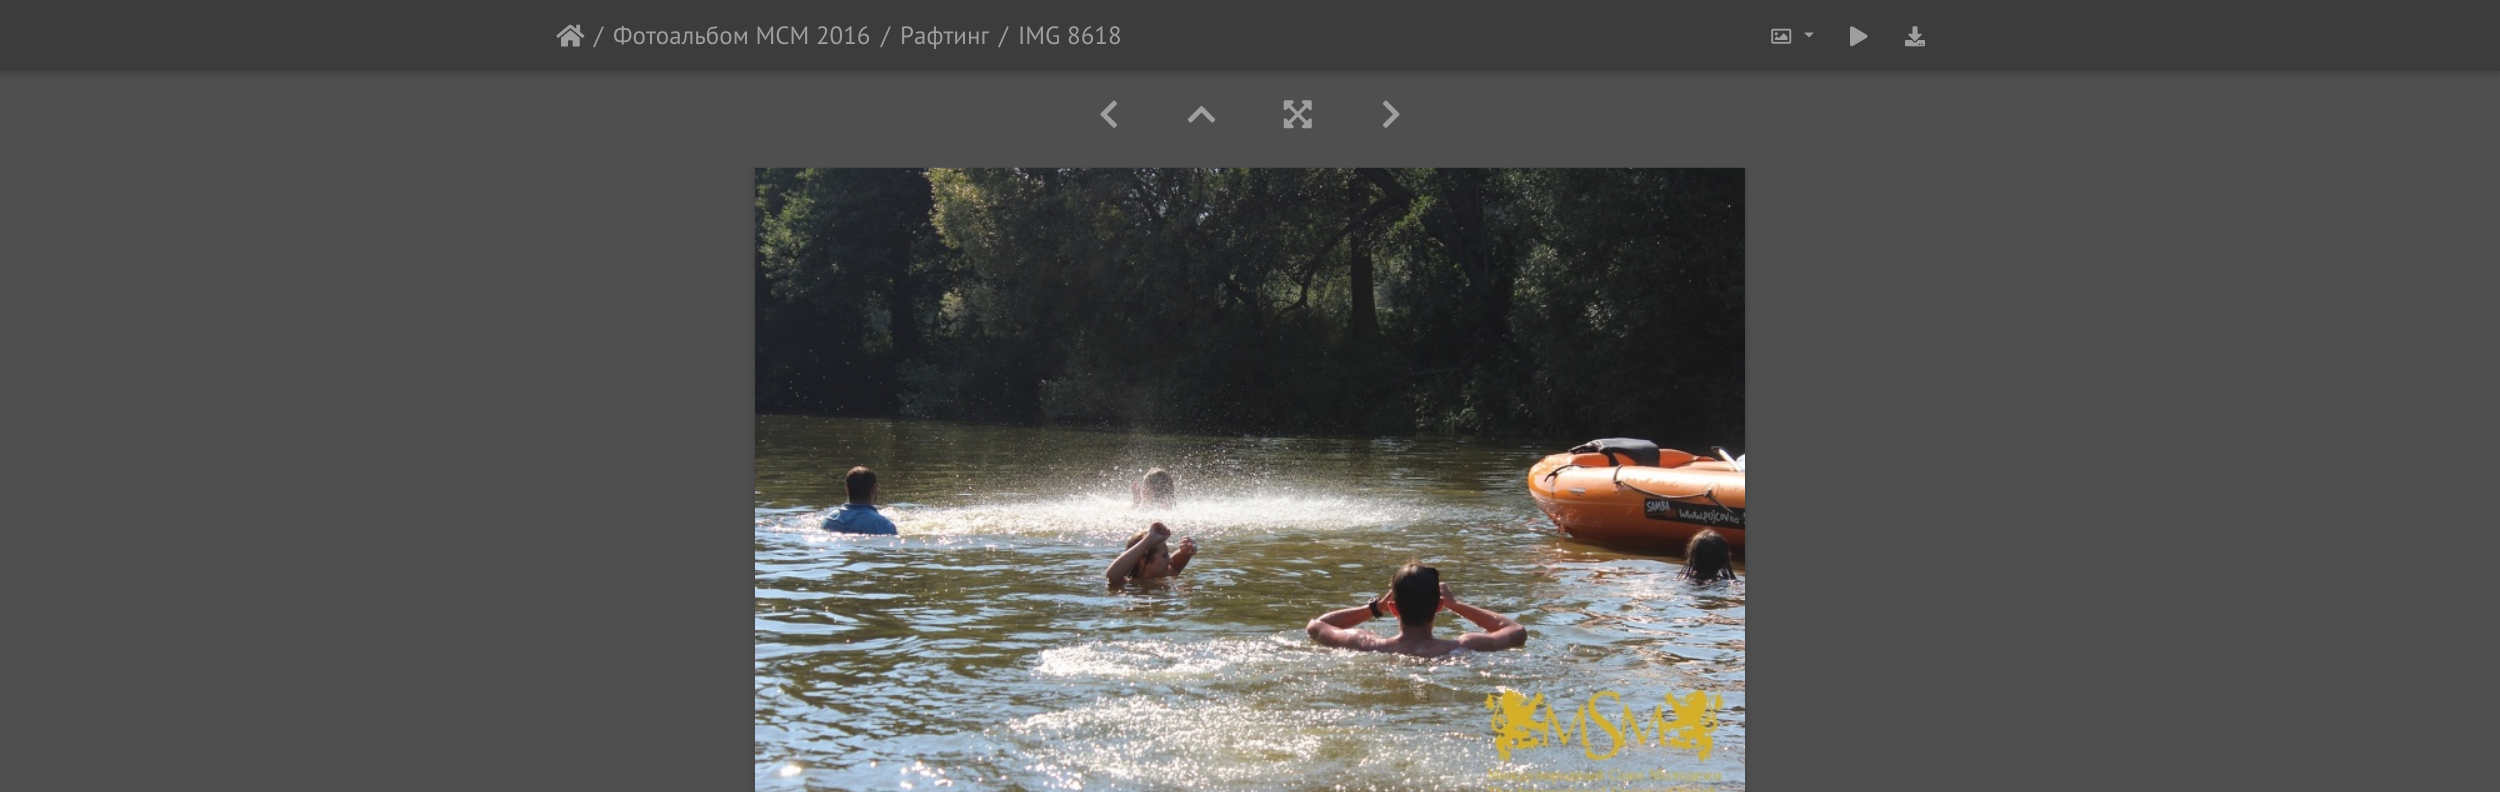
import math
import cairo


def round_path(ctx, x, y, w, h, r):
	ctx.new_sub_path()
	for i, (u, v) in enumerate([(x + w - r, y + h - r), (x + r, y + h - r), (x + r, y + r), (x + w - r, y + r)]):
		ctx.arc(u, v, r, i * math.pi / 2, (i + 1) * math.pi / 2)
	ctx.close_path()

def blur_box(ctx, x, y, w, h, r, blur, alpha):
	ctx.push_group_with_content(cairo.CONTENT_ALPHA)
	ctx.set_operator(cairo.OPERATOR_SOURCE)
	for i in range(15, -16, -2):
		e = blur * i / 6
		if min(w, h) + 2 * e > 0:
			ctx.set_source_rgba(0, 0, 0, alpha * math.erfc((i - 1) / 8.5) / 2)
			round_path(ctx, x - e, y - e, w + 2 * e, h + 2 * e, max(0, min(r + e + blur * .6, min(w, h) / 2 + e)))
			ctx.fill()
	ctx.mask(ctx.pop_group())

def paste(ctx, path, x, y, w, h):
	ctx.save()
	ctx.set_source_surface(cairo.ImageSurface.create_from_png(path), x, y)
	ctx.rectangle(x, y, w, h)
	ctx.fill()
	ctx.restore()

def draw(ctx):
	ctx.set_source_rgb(0.31, 0.31, 0.31)
	ctx.paint()
	ctx.set_source_rgb(0, 0, 0)
	blur_box(ctx, 1, 5, 2498, 69, 0, 3, 0.2)
	ctx.set_source_rgb(0.235, 0.235, 0.235)
	ctx.rectangle(0, 0, 2500, 71)
	ctx.fill()
	paste(ctx, 'media/1.png', 556, 24, 29, 23)
	ctx.select_font_face('PT Sans')
	ctx.set_font_size(25)
	ctx.set_source_rgb(0.62, 0.62, 0.62)
	for x, y, s in [
		(594, 44, '/'),
		(613, 44, 'Фотоальбом МСМ 2016'),
		(881, 44, '/'),
	]:
		ctx.move_to(x, y)
		ctx.show_text(s)
	ctx.save()
	ctx.rectangle(871, 18, 118, 37)
	ctx.clip()
	ctx.move_to(900, 44)
	ctx.show_text('Рафтинг')
	ctx.restore()
	ctx.move_to(999, 44)
	ctx.show_text('/')
	ctx.move_to(1018, 44)
	ctx.show_text('IMG 8618')
	paste(ctx, 'media/2.png', 1771, 28, 21, 16)
	ctx.new_path()
	ctx.move_to(1804, 32.5)
	ctx.line_to(1814, 32.5)
	ctx.line_to(1809, 37.5)
	ctx.close_path()
	ctx.fill()
	paste(ctx, 'media/3.png', 1850, 26, 18, 21)
	paste(ctx, 'media/4.png', 1905, 26, 20, 21)
	paste(ctx, 'media/5.png', 1100, 100, 17, 28)
	paste(ctx, 'media/6.png', 1187, 106, 29, 17)
	paste(ctx, 'media/7.png', 1283, 100, 29, 29)
	paste(ctx, 'media/8.png', 1383, 100, 17, 28)
	ctx.save()
	ctx.rectangle(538, 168, 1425, 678)
	ctx.clip()
	ctx.set_source_rgb(0, 0, 0)
	blur_box(ctx, 755, 171, 990, 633, 0, 4, 0.23)
	ctx.restore()
	paste(ctx, 'media/9.png', 755, 167, 990, 625)


surface = cairo.ImageSurface(cairo.FORMAT_RGB24, 2500, 792)
ctx = cairo.Context(surface)
options = cairo.FontOptions()
options.set_hint_metrics(cairo.HINT_METRICS_OFF)
options.set_hint_style(cairo.HINT_STYLE_NONE)
ctx.set_font_options(options)
ctx.set_miter_limit(4)
draw(ctx)
surface.write_to_png('image.png')
